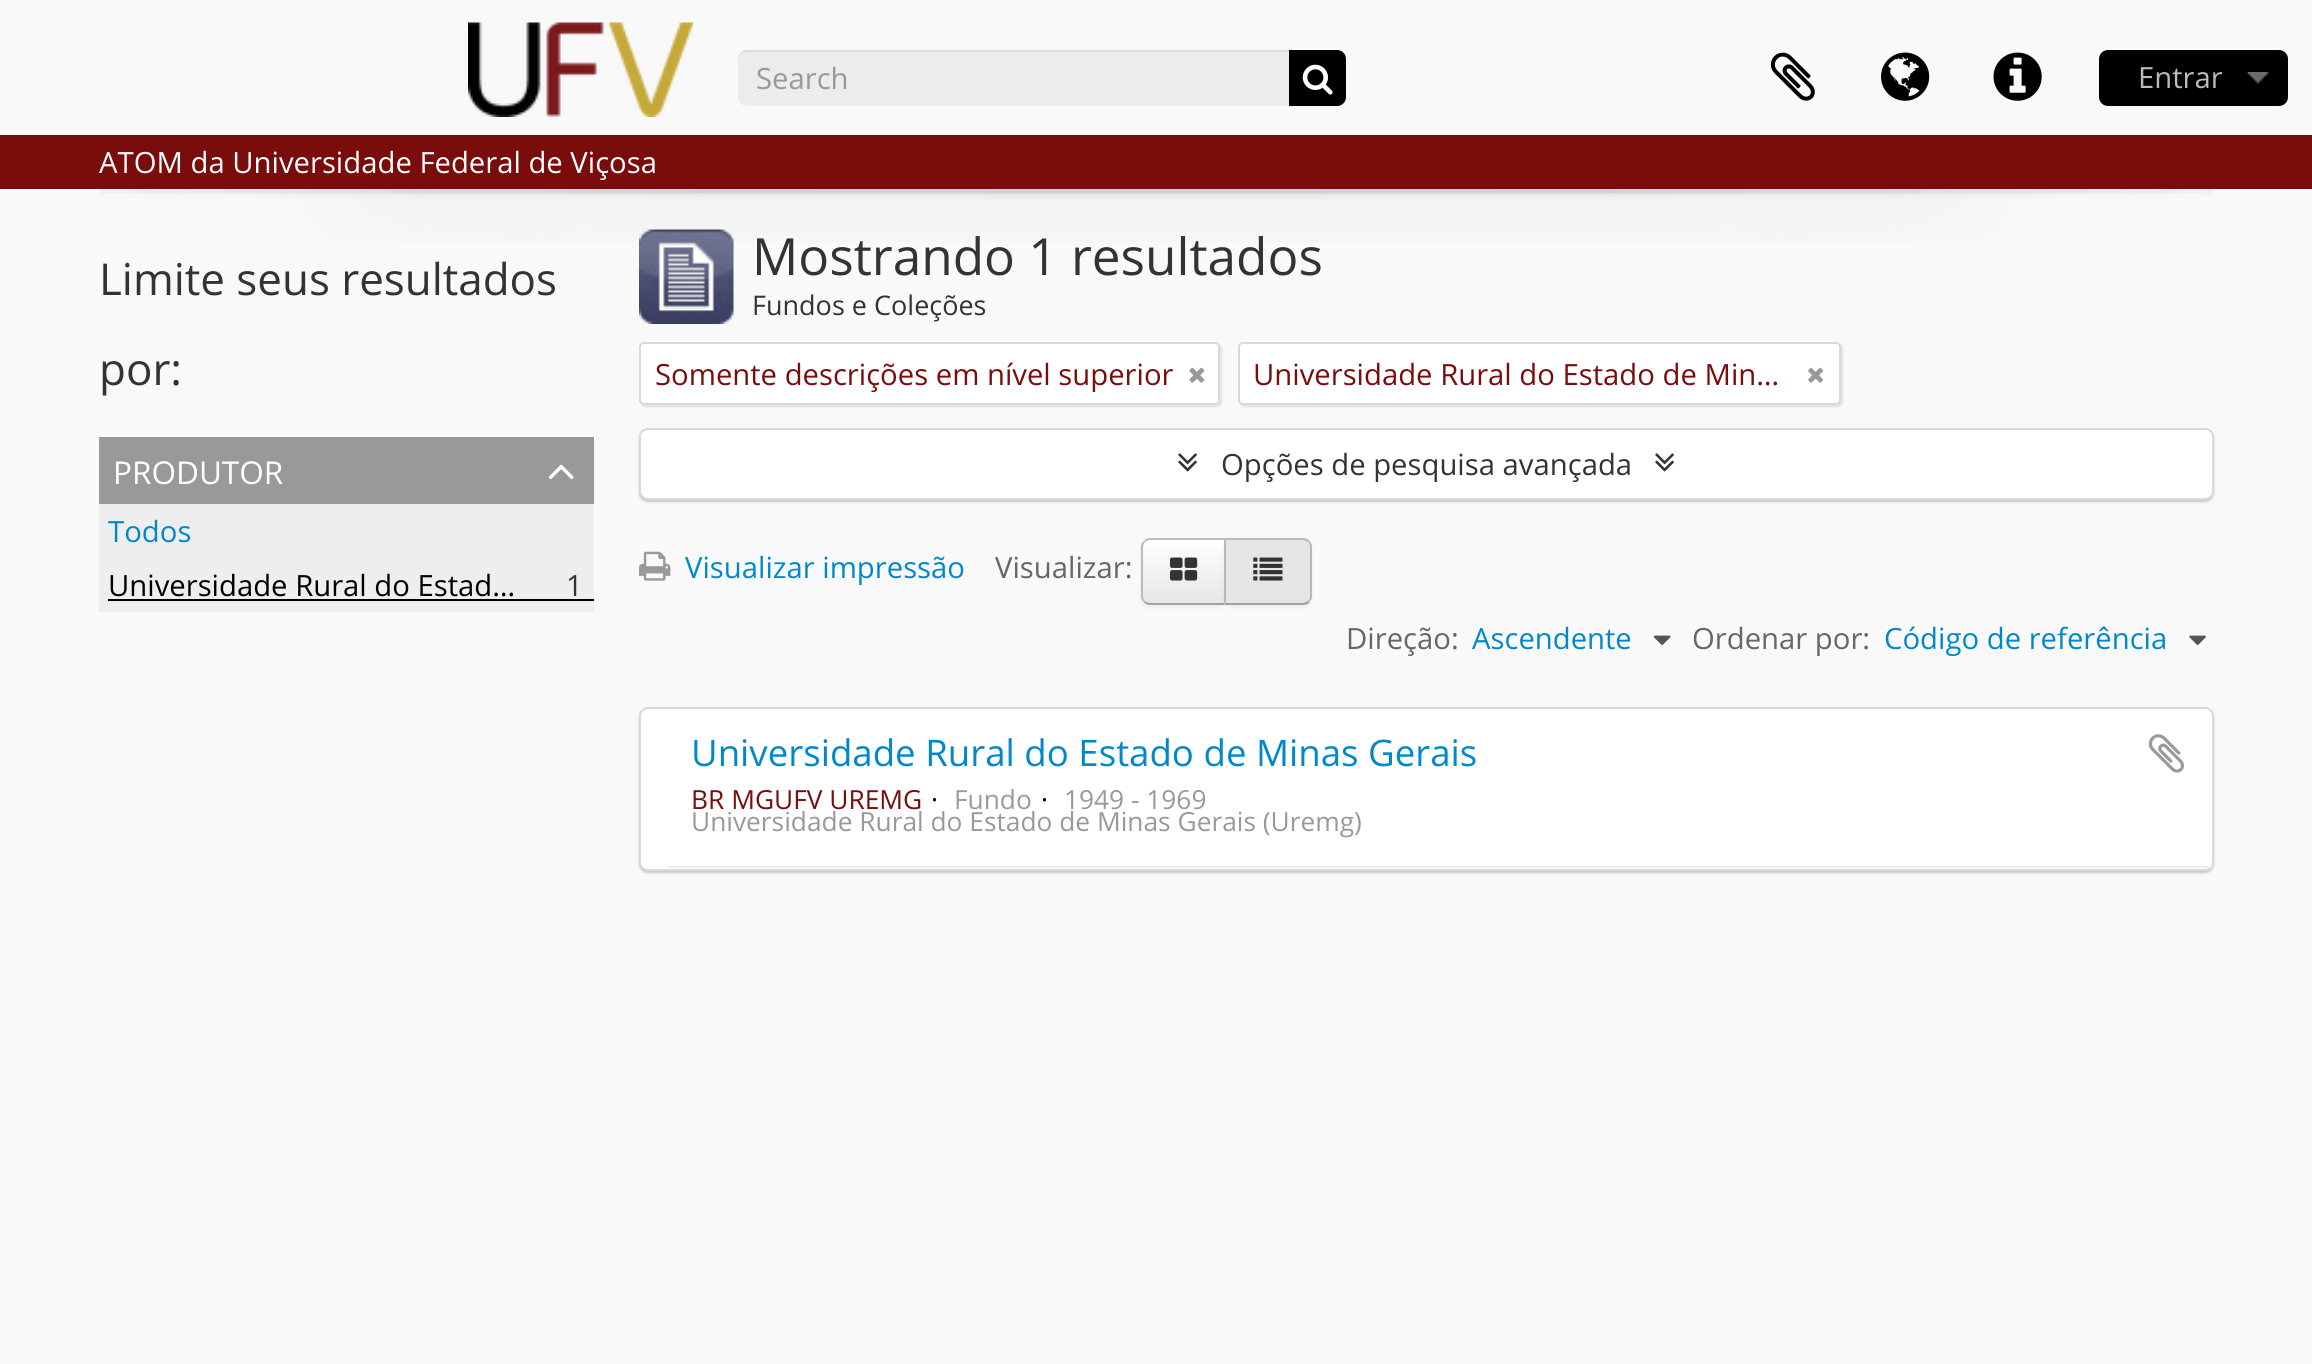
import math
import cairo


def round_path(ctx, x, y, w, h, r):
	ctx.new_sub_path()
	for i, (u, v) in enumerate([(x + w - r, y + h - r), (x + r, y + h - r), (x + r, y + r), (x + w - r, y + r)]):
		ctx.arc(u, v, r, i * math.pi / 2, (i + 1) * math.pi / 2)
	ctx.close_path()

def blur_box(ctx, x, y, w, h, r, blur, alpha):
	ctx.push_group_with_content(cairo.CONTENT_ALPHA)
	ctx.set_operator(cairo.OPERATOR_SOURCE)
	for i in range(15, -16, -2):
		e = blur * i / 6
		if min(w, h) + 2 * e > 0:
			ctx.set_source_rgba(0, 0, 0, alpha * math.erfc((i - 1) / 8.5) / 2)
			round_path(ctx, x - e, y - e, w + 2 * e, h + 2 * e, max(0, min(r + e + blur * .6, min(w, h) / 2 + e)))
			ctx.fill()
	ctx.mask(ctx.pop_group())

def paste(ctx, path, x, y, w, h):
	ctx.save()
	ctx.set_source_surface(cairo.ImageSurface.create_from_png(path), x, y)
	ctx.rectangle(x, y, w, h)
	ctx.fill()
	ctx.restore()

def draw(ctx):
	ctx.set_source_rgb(0.973, 0.973, 0.973)
	ctx.paint()
	paste(ctx, 'media/1.png', 468, 22, 225, 95)
	ctx.set_source_rgb(0.925, 0.925, 0.925)
	round_path(ctx, 738, 50, 608, 56, 9)
	ctx.fill()
	ctx.set_source_rgba(0, 0, 0, 0.07)
	ctx.new_path()
	ctx.move_to(747, 52)
	ctx.line_to(1336, 52)
	ctx.curve_to(1341, 52, 1346, 56, 1346, 61)
	ctx.curve_to(1346, 55, 1343, 50, 1337, 50)
	ctx.line_to(747, 50)
	ctx.curve_to(741, 50, 738, 55, 738, 61)
	ctx.curve_to(738, 56, 742, 52, 747, 52)
	ctx.close_path()
	ctx.fill()
	ctx.select_font_face('Open Sans')
	ctx.set_font_size(29.25)
	ctx.set_source_rgb(0.6, 0.6, 0.6)
	ctx.move_to(756, 89)
	ctx.show_text('Search')
	ctx.set_source_rgb(0, 0, 0)
	ctx.new_path()
	ctx.move_to(1289, 50)
	ctx.line_to(1337, 50)
	ctx.curve_to(1342, 50, 1346, 54, 1346, 59)
	ctx.line_to(1346, 97)
	ctx.curve_to(1346, 102, 1342, 106, 1337, 106)
	ctx.line_to(1289, 106)
	ctx.close_path()
	ctx.fill()
	paste(ctx, 'media/2.png', 1302, 64, 31, 31)
	paste(ctx, 'media/3.png', 1770, 52, 45, 49)
	paste(ctx, 'media/4.png', 1881, 52, 49, 49)
	paste(ctx, 'media/5.png', 1993, 52, 49, 49)
	round_path(ctx, 2099, 50, 189, 56, 9)
	ctx.fill()
	paste(ctx, 'media/6.png', 2247, 72, 22, 12)
	ctx.set_source_rgb(0.733, 0.733, 0.733)
	ctx.move_to(2138, 88)
	ctx.show_text('Entrar')
	ctx.set_source_rgb(0.478, 0.051, 0.047)
	ctx.rectangle(0, 135, 2312, 54)
	ctx.fill()
	ctx.set_source_rgb(1, 1, 1)
	ctx.move_to(99, 173)
	ctx.show_text('ATOM da Universidade Federal de Viçosa')
	paste(ctx, 'media/7.png', 99, 189, 2115, 53)
	ctx.set_font_size(43.9)
	ctx.set_source_rgb(0.2, 0.2, 0.2)
	ctx.move_to(99, 295)
	ctx.show_text('Limite seus resultados')
	ctx.move_to(99, 385)
	ctx.show_text('por:')
	ctx.set_source_rgb(0.6, 0.6, 0.6)
	ctx.rectangle(99, 437, 495, 67)
	ctx.fill()
	ctx.set_font_size(31.5)
	ctx.set_source_rgb(1, 1, 1)
	ctx.move_to(113, 484)
	ctx.show_text('PRODUTOR')
	paste(ctx, 'media/8.png', 548, 464, 26, 16)
	ctx.set_source_rgb(0.933, 0.933, 0.933)
	ctx.rectangle(99, 504, 495, 108)
	ctx.fill()
	ctx.set_font_size(29.25)
	ctx.set_source_rgb(0, 0.533, 0.8)
	ctx.move_to(108, 542)
	ctx.show_text('Todos')
	ctx.set_source_rgb(0, 0, 0)
	ctx.move_to(108, 596)
	ctx.show_text('Universidade Rural do Estad…')
	ctx.rectangle(108, 599, 486, 2)
	ctx.fill()
	ctx.set_source_rgb(0.2, 0.2, 0.2)
	ctx.move_to(566, 596)
	ctx.show_text('1')
	paste(ctx, 'media/9.png', 639, 229, 95, 95)
	ctx.set_font_size(51.25)
	ctx.move_to(752, 275)
	ctx.show_text('Mostrando 1 resultados')
	ctx.set_font_size(27)
	ctx.move_to(752, 315)
	ctx.show_text('Fundos e Coleções')
	ctx.set_source_rgb(0, 0, 0)
	blur_box(ctx, 641, 344, 581, 63, 5, 1, 0.1)
	ctx.set_source_rgb(1, 1, 1)
	round_path(ctx, 640, 343, 579, 61, 4)
	ctx.fill_preserve()
	ctx.set_source_rgb(0.851, 0.851, 0.851)
	ctx.stroke()
	ctx.set_font_size(29.25)
	ctx.set_source_rgb(0.478, 0.051, 0.047)
	ctx.move_to(655, 385)
	ctx.show_text('Somente descrições em nível superior')
	paste(ctx, 'media/10.png', 1189, 367, 16, 16)
	ctx.set_source_rgb(0, 0, 0)
	blur_box(ctx, 1240, 344, 603, 63, 5, 1, 0.1)
	ctx.set_source_rgb(1, 1, 1)
	round_path(ctx, 1239, 343, 601, 61, 4)
	ctx.fill_preserve()
	ctx.set_source_rgb(0.851, 0.851, 0.851)
	ctx.stroke()
	ctx.set_source_rgb(0.478, 0.051, 0.047)
	ctx.move_to(1253, 385)
	ctx.show_text('Universidade Rural do Estado de Min…')
	paste(ctx, 'media/11.png', 1808, 367, 15, 16)
	ctx.set_source_rgb(0, 0, 0)
	blur_box(ctx, 639, 430, 1575, 72, 9, 1, 0.2)
	ctx.set_source_rgb(1, 1, 1)
	round_path(ctx, 640, 429, 1573, 70, 8)
	ctx.fill_preserve()
	ctx.set_source_rgb(0.851, 0.851, 0.851)
	ctx.stroke()
	paste(ctx, 'media/12.png', 1178, 453, 19, 19)
	ctx.set_source_rgb(0.2, 0.2, 0.2)
	ctx.move_to(1221, 475)
	ctx.show_text('Opções de pesquisa avançada')
	paste(ctx, 'media/12.png', 1655, 453, 19, 19)
	paste(ctx, 'media/13.png', 639, 551, 32, 30)
	ctx.set_source_rgb(0, 0.533, 0.8)
	ctx.move_to(685, 578)
	ctx.show_text('Visualizar impressão')
	ctx.set_source_rgb(0.4, 0.4, 0.4)
	ctx.move_to(995, 578)
	ctx.show_text('Visualizar:')
	ctx.set_source_rgb(0, 0, 0)
	blur_box(ctx, 1141, 540, 85, 68, 9, 2, 0.05)
	ctx.set_source_rgb(0.961, 0.961, 0.961)
	ctx.new_path()
	ctx.move_to(1150, 538)
	ctx.line_to(1226, 538)
	ctx.line_to(1226, 605)
	ctx.line_to(1150, 605)
	ctx.curve_to(1145, 605, 1141, 601, 1141, 596)
	ctx.line_to(1141, 547)
	ctx.curve_to(1141, 542, 1145, 538, 1150, 538)
	ctx.close_path()
	ctx.fill()
	ctx.save()
	ctx.new_path()
	ctx.move_to(1150, 538)
	ctx.line_to(1226, 538)
	ctx.line_to(1226, 605)
	ctx.line_to(1150, 605)
	ctx.curve_to(1145, 605, 1141, 601, 1141, 596)
	ctx.line_to(1141, 547)
	ctx.curve_to(1141, 542, 1145, 538, 1150, 538)
	ctx.close_path()
	ctx.clip()
	gradient = cairo.LinearGradient(1184, 540, 1184, 603)
	gradient.add_color_stop_rgba(0, 1, 1, 1, 1)
	gradient.add_color_stop_rgba(1, 0.902, 0.902, 0.902, 1)
	ctx.set_source(gradient)
	ctx.rectangle(1141, 540, 83, 63)
	ctx.fill()
	ctx.restore()
	ctx.set_source_rgb(0.733, 0.733, 0.733)
	ctx.new_path()
	ctx.move_to(1150, 538)
	ctx.curve_to(1148, 538, 1145, 539, 1144, 541)
	ctx.line_to(1145, 542)
	ctx.curve_to(1146, 541, 1148, 540, 1150, 540)
	ctx.line_to(1224, 540)
	ctx.line_to(1226, 538)
	ctx.close_path()
	ctx.fill()
	ctx.set_source_rgb(0.635, 0.635, 0.635)
	ctx.new_path()
	ctx.move_to(1226, 605)
	ctx.line_to(1224, 603)
	ctx.line_to(1150, 603)
	ctx.curve_to(1148, 603, 1146, 602, 1145, 601)
	ctx.line_to(1144, 602)
	ctx.curve_to(1145, 604, 1148, 605, 1150, 605)
	ctx.close_path()
	ctx.fill()
	ctx.set_source_rgb(0.733, 0.733, 0.733)
	ctx.new_path()
	ctx.move_to(1144, 541)
	ctx.curve_to(1142, 542, 1141, 544, 1141, 547)
	ctx.line_to(1141, 596)
	ctx.curve_to(1141, 598, 1142, 601, 1144, 602)
	ctx.line_to(1145, 601)
	ctx.curve_to(1144, 600, 1143, 598, 1143, 596)
	ctx.line_to(1143, 547)
	ctx.curve_to(1143, 545, 1144, 543, 1145, 542)
	ctx.close_path()
	ctx.fill()
	paste(ctx, 'media/14.png', 1170, 557, 28, 24)
	ctx.set_source_rgb(0, 0, 0)
	blur_box(ctx, 1224, 540, 88, 68, 9, 2, 0.05)
	ctx.set_source_rgb(0.902, 0.902, 0.902)
	ctx.new_path()
	ctx.move_to(1224, 538)
	ctx.line_to(1303, 538)
	ctx.curve_to(1308, 538, 1312, 542, 1312, 547)
	ctx.line_to(1312, 596)
	ctx.curve_to(1312, 601, 1308, 605, 1303, 605)
	ctx.line_to(1224, 605)
	ctx.close_path()
	ctx.fill()
	ctx.set_source_rgb(0.733, 0.733, 0.733)
	ctx.new_path()
	ctx.move_to(1309, 540)
	ctx.curve_to(1308, 539, 1305, 538, 1303, 538)
	ctx.line_to(1224, 538)
	ctx.line_to(1226, 540)
	ctx.line_to(1303, 540)
	ctx.curve_to(1304, 540, 1306, 541, 1308, 542)
	ctx.close_path()
	ctx.fill()
	ctx.new_path()
	ctx.move_to(1309, 540)
	ctx.curve_to(1310, 542, 1311, 543, 1312, 545)
	ctx.line_to(1312, 598)
	ctx.curve_to(1311, 600, 1310, 601, 1309, 603)
	ctx.line_to(1308, 601)
	ctx.curve_to(1309, 600, 1310, 598, 1310, 596)
	ctx.line_to(1310, 547)
	ctx.curve_to(1310, 545, 1309, 543, 1308, 542)
	ctx.close_path()
	ctx.fill()
	ctx.set_source_rgb(0.635, 0.635, 0.635)
	ctx.new_path()
	ctx.move_to(1309, 603)
	ctx.curve_to(1308, 604, 1305, 605, 1303, 605)
	ctx.line_to(1224, 605)
	ctx.line_to(1226, 603)
	ctx.line_to(1303, 603)
	ctx.curve_to(1304, 603, 1306, 602, 1308, 601)
	ctx.close_path()
	ctx.fill()
	ctx.set_source_rgb(0.733, 0.733, 0.733)
	ctx.new_path()
	ctx.move_to(1226, 540)
	ctx.line_to(1226, 603)
	ctx.line_to(1224, 605)
	ctx.line_to(1224, 538)
	ctx.close_path()
	ctx.fill()
	paste(ctx, 'media/15.png', 1253, 557, 30, 24)
	ctx.set_source_rgb(0.4, 0.4, 0.4)
	ctx.move_to(1346, 649)
	ctx.show_text('Direção:')
	ctx.set_source_rgb(0, 0.533, 0.8)
	ctx.move_to(1472, 649)
	ctx.show_text('Ascendente')
	paste(ctx, 'media/16.png', 1653, 635, 18, 10)
	ctx.set_source_rgb(0.4, 0.4, 0.4)
	ctx.move_to(1692, 649)
	ctx.show_text('Ordenar por:')
	ctx.set_source_rgb(0, 0.533, 0.8)
	ctx.move_to(1884, 649)
	ctx.show_text('Código de referência')
	paste(ctx, 'media/17.png', 2189, 635, 17, 10)
	ctx.set_source_rgb(0, 0, 0)
	blur_box(ctx, 639, 709, 1575, 164, 9, 1, 0.2)
	ctx.set_source_rgb(1, 1, 1)
	round_path(ctx, 640, 708, 1573, 162, 8)
	ctx.fill_preserve()
	ctx.set_source_rgb(0.851, 0.851, 0.851)
	ctx.stroke()
	ctx.set_source_rgb(0.933, 0.933, 0.933)
	ctx.rectangle(668, 866, 1544, 2)
	ctx.fill()
	ctx.set_font_size(36.6)
	ctx.set_source_rgb(0, 0.533, 0.8)
	ctx.move_to(691, 766)
	ctx.show_text('Universidade Rural do Estado de Minas Gerais')
	paste(ctx, 'media/18.png', 2148, 734, 36, 39)
	ctx.set_font_size(26.3)
	ctx.set_source_rgb(0.478, 0.051, 0.047)
	ctx.move_to(691, 809)
	ctx.show_text('BR MGUFV UREMG')
	ctx.set_source_rgb(0, 0, 0)
	ctx.move_to(931, 809)
	ctx.show_text('·')
	ctx.set_source_rgb(0.6, 0.6, 0.6)
	ctx.move_to(954, 809)
	ctx.show_text('Fundo')
	ctx.set_source_rgb(0, 0, 0)
	ctx.move_to(1041, 809)
	ctx.show_text('·')
	ctx.set_source_rgb(0.6, 0.6, 0.6)
	ctx.move_to(1064, 809)
	ctx.show_text('1949 - 1969')
	ctx.move_to(691, 831)
	ctx.show_text('Universidade Rural do Estado de Minas Gerais (Uremg)')


surface = cairo.ImageSurface(cairo.FORMAT_RGB24, 2312, 1364)
ctx = cairo.Context(surface)
options = cairo.FontOptions()
options.set_hint_metrics(cairo.HINT_METRICS_OFF)
options.set_hint_style(cairo.HINT_STYLE_NONE)
ctx.set_font_options(options)
ctx.set_miter_limit(4)
draw(ctx)
surface.write_to_png('image.png')
